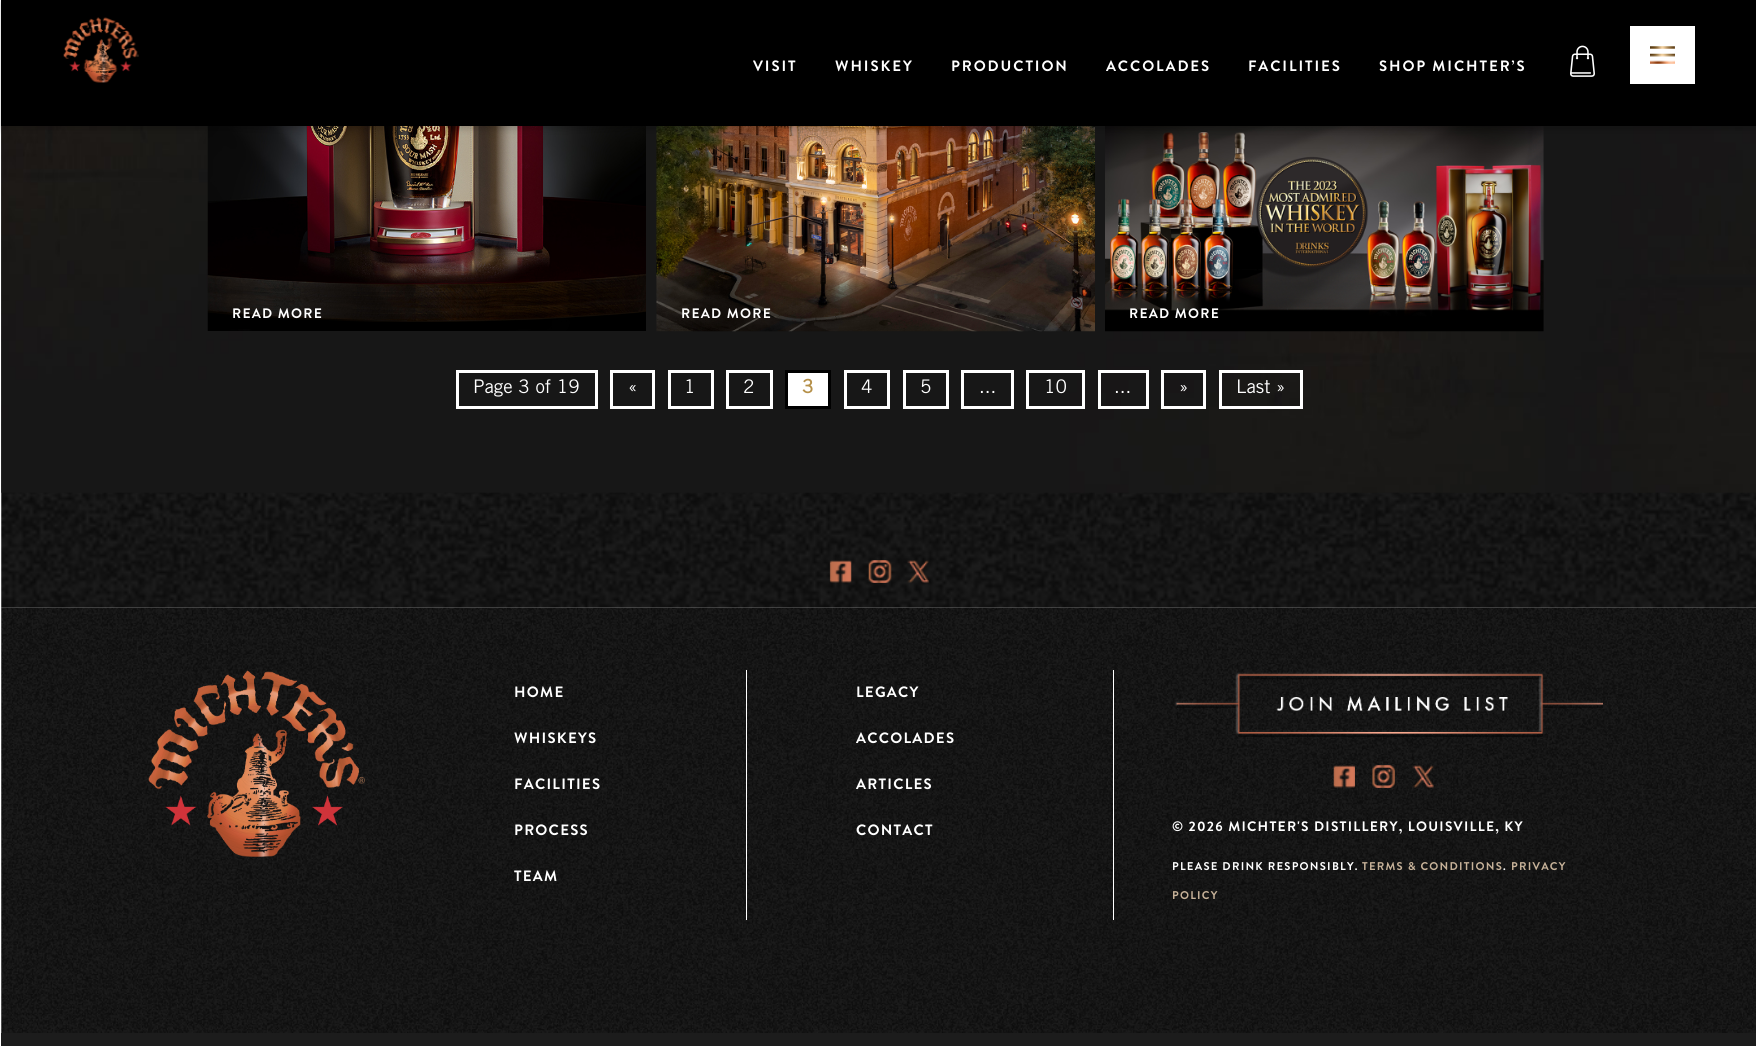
import math
import cairo


def write_spaced(ctx, x, y, s, letter, word):
	ctx.move_to(x, y)
	for ch in s:
		ctx.show_text(ch)
		ctx.rel_move_to(letter + word * (ch == ' '), 0)

def round_path(ctx, x, y, w, h, r):
	ctx.new_sub_path()
	for i, (u, v) in enumerate([(x + w - r, y + h - r), (x + r, y + h - r), (x + r, y + r), (x + w - r, y + r)]):
		ctx.arc(u, v, r, i * math.pi / 2, (i + 1) * math.pi / 2)
	ctx.close_path()

def blur_box(ctx, x, y, w, h, r, blur, alpha):
	ctx.push_group_with_content(cairo.CONTENT_ALPHA)
	ctx.set_operator(cairo.OPERATOR_SOURCE)
	for i in range(15, -16, -2):
		e = blur * i / 6
		if min(w, h) + 2 * e > 0:
			ctx.set_source_rgba(0, 0, 0, alpha * math.erfc((i - 1) / 8.5) / 2)
			round_path(ctx, x - e, y - e, w + 2 * e, h + 2 * e, max(0, min(r + e + blur * .6, min(w, h) / 2 + e)))
			ctx.fill()
	ctx.mask(ctx.pop_group())

def paste(ctx, path, x, y, w, h):
	ctx.save()
	ctx.set_source_surface(cairo.ImageSurface.create_from_png(path), x, y)
	ctx.rectangle(x, y, w, h)
	ctx.fill()
	ctx.restore()

def draw(ctx):
	ctx.set_source_rgb(1, 1, 1)
	ctx.paint()
	paste(ctx, 'media/5.png', 1, 126, 1755, 482)
	paste(ctx, 'media/9.png', 1, 126, 1755, 367)
	paste(ctx, 'media/10.png', 207, 126, 439, 205)
	paste(ctx, 'media/11.png', 656, 126, 439, 206)
	paste(ctx, 'media/12.png', 1105, 126, 439, 206)
	ctx.set_source_rgb(0, 0, 0)
	blur_box(ctx, 1, 3, 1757, 126, 0, 4, 0.2)
	ctx.set_source_rgb(0, 0, 0)
	ctx.rectangle(1, 0, 1755, 126)
	ctx.fill()
	paste(ctx, 'media/1.png', 63, 17, 76, 66)
	ctx.select_font_face('Brandon Grotesque', cairo.FONT_SLANT_NORMAL, cairo.FONT_WEIGHT_BOLD)
	ctx.set_font_size(15)
	ctx.set_source_rgb(1, 1, 1)
	for x, y, s in [
		(753, 71, 'VISIT'),
		(835, 71, 'WHISKEY'),
		(951, 71, 'PRODUCTION'),
		(1106, 71, 'ACCOLADES'),
		(1248, 71, 'FACILITIES'),
		(1379, 71, 'SHOP MICHTER’S'),
	]:
		write_spaced(ctx, x, y, s, 1.9, 0)
	paste(ctx, 'media/2.png', 1570, 45, 25, 32)
	ctx.rectangle(1630, 26, 65, 58)
	ctx.fill()
	paste(ctx, 'media/3.png', 1650, 46, 25, 3)
	paste(ctx, 'media/4.png', 1650, 53, 25, 11)
	paste(ctx, 'media/6.png', 829, 560, 23, 23)
	paste(ctx, 'media/7.png', 868, 560, 24, 23)
	paste(ctx, 'media/8.png', 907, 560, 22, 23)
	ctx.set_font_size(13.75)
	for x, y, s in [
		(232, 318, 'READ MORE'),
		(681, 318, 'READ MORE'),
		(1129, 318, 'READ MORE'),
	]:
		write_spaced(ctx, x, y, s, 1.25, 0)
	ctx.rectangle(457.5, 371.5, 139, 36)
	ctx.set_line_width(3)
	ctx.stroke()
	ctx.select_font_face('Trade Gothic')
	ctx.set_font_size(18.75)
	ctx.move_to(473, 393)
	ctx.show_text('Page 3 of 19')
	ctx.rectangle(611.5, 371.5, 42, 36)
	ctx.stroke()
	ctx.move_to(628, 393)
	ctx.show_text('«')
	ctx.rectangle(669.5, 371.5, 43, 36)
	ctx.stroke()
	ctx.move_to(684, 393)
	ctx.show_text('1')
	ctx.rectangle(727.5, 371.5, 44, 36)
	ctx.stroke()
	ctx.move_to(743, 393)
	ctx.show_text('2')
	ctx.rectangle(786.5, 371.5, 43, 36)
	ctx.fill_preserve()
	ctx.set_source_rgb(0, 0, 0)
	ctx.stroke()
	ctx.select_font_face('Trade Gothic', cairo.FONT_SLANT_NORMAL, cairo.FONT_WEIGHT_BOLD)
	ctx.set_source_rgb(0.71, 0.565, 0.286)
	ctx.move_to(802, 393)
	ctx.show_text('3')
	ctx.rectangle(845.5, 371.5, 43, 36)
	ctx.set_source_rgb(1, 1, 1)
	ctx.stroke()
	ctx.select_font_face('Trade Gothic')
	ctx.move_to(861, 393)
	ctx.show_text('4')
	ctx.rectangle(904.5, 371.5, 43, 36)
	ctx.stroke()
	ctx.move_to(920, 393)
	ctx.show_text('5')
	ctx.rectangle(962.5, 371.5, 50, 36)
	ctx.stroke()
	ctx.move_to(979, 393)
	ctx.show_text('...')
	ctx.rectangle(1027.5, 371.5, 56, 36)
	ctx.stroke()
	ctx.move_to(1044, 393)
	ctx.show_text('10')
	ctx.rectangle(1099.5, 371.5, 48, 36)
	ctx.stroke()
	ctx.move_to(1114, 393)
	ctx.show_text('...')
	ctx.rectangle(1162.5, 371.5, 42, 36)
	ctx.stroke()
	ctx.move_to(1179, 393)
	ctx.show_text('»')
	ctx.rectangle(1220.5, 371.5, 81, 36)
	ctx.stroke()
	ctx.move_to(1236, 393)
	ctx.show_text('Last »')
	paste(ctx, 'media/13.png', 1, 607, 1755, 426)
	paste(ctx, 'media/14.png', 148, 670, 217, 187)
	ctx.rectangle(746, 670, 1, 250)
	ctx.fill()
	ctx.select_font_face('Brandon Grotesque', cairo.FONT_SLANT_NORMAL, cairo.FONT_WEIGHT_BOLD)
	ctx.set_font_size(15)
	for x, y, s in [
		(514, 697, 'HOME'),
		(514, 743, 'WHISKEYS'),
		(514, 789, 'FACILITIES'),
		(514, 835, 'PROCESS'),
		(514, 881, 'TEAM'),
	]:
		write_spaced(ctx, x, y, s, 1.25, 0)
	ctx.rectangle(1113, 670, 1, 250)
	ctx.fill()
	for x, y, s in [
		(856, 697, 'LEGACY'),
		(856, 743, 'ACCOLADES'),
		(856, 789, 'ARTICLES'),
		(856, 835, 'CONTACT'),
	]:
		write_spaced(ctx, x, y, s, 1.25, 0)
	paste(ctx, 'media/15.png', 1174, 672, 429, 65)
	paste(ctx, 'media/16.png', 1333, 765, 22, 23)
	paste(ctx, 'media/17.png', 1372, 765, 23, 23)
	paste(ctx, 'media/18.png', 1412, 765, 22, 23)
	ctx.set_font_size(13.75)
	write_spaced(ctx, 1172, 831, '© 2026 MICHTER\'S DISTILLERY, LOUISVILLE, KY', 1.25, 0)
	ctx.set_font_size(11.25)
	write_spaced(ctx, 1172, 870, 'PLEASE DRINK RESPONSIBLY.', 1.25, 0)
	ctx.set_source_rgb(0.78, 0.698, 0.6)
	write_spaced(ctx, 1362, 870, 'TERMS & CONDITIONS', 1.25, 0)
	ctx.set_source_rgb(1, 1, 1)
	write_spaced(ctx, 1503, 870, '.', 1.25, 0)
	ctx.set_source_rgb(0.78, 0.698, 0.6)
	write_spaced(ctx, 1511, 870, 'PRIVACY', 1.25, 0)
	write_spaced(ctx, 1172, 899, 'POLICY', 1.25, 0)
	ctx.set_source_rgb(0.11, 0.11, 0.11)
	ctx.rectangle(1, 1033, 1755, 13)
	ctx.fill()


surface = cairo.ImageSurface(cairo.FORMAT_RGB24, 1756, 1046)
ctx = cairo.Context(surface)
options = cairo.FontOptions()
options.set_hint_metrics(cairo.HINT_METRICS_OFF)
options.set_hint_style(cairo.HINT_STYLE_NONE)
ctx.set_font_options(options)
ctx.set_miter_limit(4)
draw(ctx)
surface.write_to_png('image.png')
